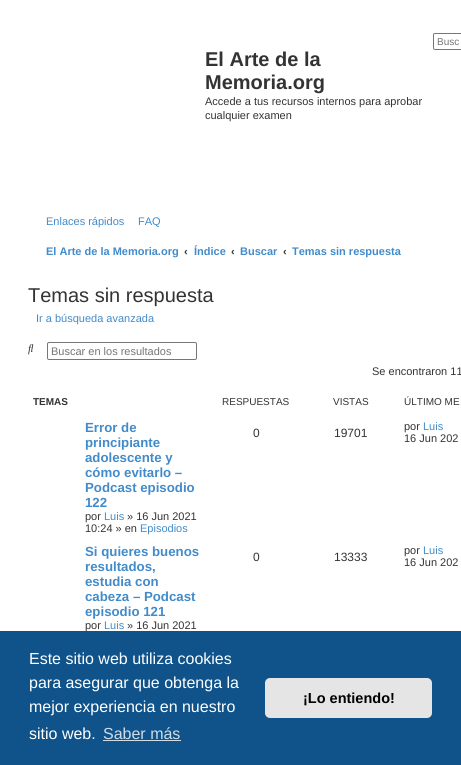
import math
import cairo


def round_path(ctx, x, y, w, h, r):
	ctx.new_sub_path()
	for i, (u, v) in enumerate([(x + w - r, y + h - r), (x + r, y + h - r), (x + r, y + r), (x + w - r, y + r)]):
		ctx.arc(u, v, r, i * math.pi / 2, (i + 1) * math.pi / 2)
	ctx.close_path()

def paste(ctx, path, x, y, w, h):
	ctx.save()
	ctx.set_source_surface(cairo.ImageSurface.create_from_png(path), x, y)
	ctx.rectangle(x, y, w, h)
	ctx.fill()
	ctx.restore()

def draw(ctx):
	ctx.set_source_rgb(1, 1, 1)
	ctx.paint()
	round_path(ctx, 433.5, 33.5, 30, 16, 1.5)
	ctx.set_source_rgb(0.463, 0.463, 0.463)
	ctx.set_line_width(1)
	ctx.stroke()
	ctx.select_font_face('Liberation Sans')
	ctx.set_font_size(10)
	ctx.set_source_rgb(0.459, 0.459, 0.459)
	ctx.move_to(437, 45)
	ctx.show_text('Busc')
	ctx.select_font_face('Liberation Sans', cairo.FONT_SLANT_NORMAL, cairo.FONT_WEIGHT_BOLD)
	ctx.set_font_size(20)
	ctx.set_source_rgb(0.2, 0.2, 0.2)
	ctx.move_to(205, 66)
	ctx.show_text('El Arte de la')
	ctx.move_to(205, 89)
	ctx.show_text('Memoria.org')
	ctx.select_font_face('Liberation Sans')
	ctx.set_font_size(11)
	ctx.move_to(205, 105)
	ctx.show_text('Accede a tus recursos internos para aprobar')
	ctx.move_to(205, 119)
	ctx.show_text('cualquier examen')
	ctx.set_source_rgb(0.259, 0.545, 0.792)
	ctx.move_to(46, 225)
	ctx.show_text('Enlaces rápidos')
	ctx.move_to(138, 225)
	ctx.show_text('FAQ')
	ctx.select_font_face('Liberation Sans', cairo.FONT_SLANT_NORMAL, cairo.FONT_WEIGHT_BOLD)
	ctx.move_to(46, 255)
	ctx.show_text('El Arte de la Memoria.org')
	ctx.set_source_rgb(0.2, 0.2, 0.2)
	ctx.move_to(184, 255)
	ctx.show_text('‹')
	ctx.set_source_rgb(0.259, 0.545, 0.792)
	ctx.move_to(194, 255)
	ctx.show_text('Índice')
	ctx.set_source_rgb(0.2, 0.2, 0.2)
	ctx.move_to(231, 255)
	ctx.show_text('‹')
	ctx.set_source_rgb(0.259, 0.545, 0.792)
	ctx.move_to(240, 255)
	ctx.show_text('Buscar')
	ctx.set_source_rgb(0.2, 0.2, 0.2)
	ctx.move_to(283, 255)
	ctx.show_text('‹')
	ctx.set_source_rgb(0.259, 0.545, 0.792)
	ctx.move_to(292, 255)
	ctx.show_text('Temas sin respuesta')
	ctx.select_font_face('Liberation Sans')
	ctx.set_font_size(20)
	ctx.set_source_rgb(0.2, 0.2, 0.2)
	ctx.move_to(28, 302)
	ctx.show_text('Temas sin respuesta')
	ctx.set_font_size(11)
	ctx.set_source_rgb(0.259, 0.545, 0.792)
	ctx.move_to(36, 322)
	ctx.show_text('Ir a búsqueda avanzada')
	paste(ctx, 'media/1.png', 28, 344, 6, 11)
	round_path(ctx, 47.5, 342.5, 149, 17, 1.5)
	ctx.set_source_rgb(0.463, 0.463, 0.463)
	ctx.stroke()
	ctx.set_source_rgb(0.459, 0.459, 0.459)
	ctx.move_to(51, 355)
	ctx.show_text('Buscar en los resultados')
	ctx.set_source_rgb(0.2, 0.2, 0.2)
	ctx.move_to(372, 375)
	ctx.show_text('Se encontraron 11')
	ctx.select_font_face('Liberation Sans', cairo.FONT_SLANT_NORMAL, cairo.FONT_WEIGHT_BOLD)
	ctx.set_font_size(10)
	ctx.move_to(33, 405)
	ctx.show_text('TEMAS')
	ctx.select_font_face('Liberation Sans')
	for x, y, s in [
		(222, 405, 'RESPUESTAS'),
		(333, 405, 'VISTAS'),
		(404, 405, 'ÚLTIMO ME'),
	]:
		ctx.move_to(x, y)
		ctx.show_text(s)
	ctx.select_font_face('Liberation Sans', cairo.FONT_SLANT_NORMAL, cairo.FONT_WEIGHT_BOLD)
	ctx.set_font_size(13.25)
	ctx.set_source_rgb(0.259, 0.545, 0.792)
	for x, y, s in [
		(85, 432, 'Error de'),
		(85, 447, 'principiante'),
		(85, 462, 'adolescente y'),
		(85, 477, 'cómo evitarlo –'),
		(85, 492, 'Podcast episodio'),
		(85, 507, '122'),
	]:
		ctx.move_to(x, y)
		ctx.show_text(s)
	ctx.select_font_face('Liberation Sans')
	ctx.set_font_size(11)
	ctx.set_source_rgb(0.2, 0.2, 0.2)
	ctx.move_to(85, 520)
	ctx.show_text('por')
	ctx.set_source_rgb(0.259, 0.545, 0.792)
	ctx.move_to(104, 520)
	ctx.show_text('Luis')
	ctx.set_source_rgb(0.2, 0.2, 0.2)
	ctx.move_to(127, 520)
	ctx.show_text('» 16 Jun 2021')
	ctx.move_to(85, 532)
	ctx.show_text('10:24 » en')
	ctx.set_source_rgb(0.259, 0.545, 0.792)
	ctx.move_to(140, 532)
	ctx.show_text('Episodios')
	ctx.set_font_size(12)
	ctx.set_source_rgb(0.2, 0.2, 0.2)
	ctx.move_to(253, 437)
	ctx.show_text('0')
	ctx.move_to(334, 437)
	ctx.show_text('19701')
	ctx.set_font_size(11)
	ctx.move_to(404, 430)
	ctx.show_text('por')
	ctx.set_source_rgb(0.259, 0.545, 0.792)
	ctx.move_to(423, 430)
	ctx.show_text('Luis')
	ctx.set_source_rgb(0.2, 0.2, 0.2)
	ctx.move_to(404, 442)
	ctx.show_text('16 Jun 202')
	ctx.select_font_face('Liberation Sans', cairo.FONT_SLANT_NORMAL, cairo.FONT_WEIGHT_BOLD)
	ctx.set_font_size(13.25)
	ctx.set_source_rgb(0.259, 0.545, 0.792)
	for x, y, s in [
		(85, 556, 'Si quieres buenos'),
		(85, 571, 'resultados,'),
		(85, 586, 'estudia con'),
		(85, 601, 'cabeza – Podcast'),
		(85, 616, 'episodio 121'),
	]:
		ctx.move_to(x, y)
		ctx.show_text(s)
	ctx.select_font_face('Liberation Sans')
	ctx.set_font_size(11)
	ctx.set_source_rgb(0.2, 0.2, 0.2)
	ctx.move_to(85, 629)
	ctx.show_text('por')
	ctx.set_source_rgb(0.259, 0.545, 0.792)
	ctx.move_to(104, 629)
	ctx.show_text('Luis')
	ctx.set_source_rgb(0.2, 0.2, 0.2)
	ctx.move_to(127, 629)
	ctx.show_text('» 16 Jun 2021')
	ctx.set_font_size(12)
	ctx.move_to(253, 561)
	ctx.show_text('0')
	ctx.move_to(334, 561)
	ctx.show_text('13333')
	ctx.set_font_size(11)
	ctx.move_to(404, 554)
	ctx.show_text('por')
	ctx.set_source_rgb(0.259, 0.545, 0.792)
	ctx.move_to(423, 554)
	ctx.show_text('Luis')
	ctx.set_source_rgb(0.2, 0.2, 0.2)
	ctx.move_to(404, 566)
	ctx.show_text('16 Jun 202')
	ctx.set_source_rgb(0.059, 0.325, 0.541)
	ctx.rectangle(0, 631, 461, 134)
	ctx.fill()
	ctx.set_font_size(16)
	ctx.set_source_rgb(1, 1, 1)
	for x, y, s in [
		(29, 664, 'Este sitio web utiliza cookies'),
		(29, 688, 'para asegurar que obtenga la'),
		(29, 712, 'mejor experiencia en nuestro'),
		(29, 739, 'sitio web.'),
	]:
		ctx.move_to(x, y)
		ctx.show_text(s)
	ctx.set_source_rgb(0.812, 0.867, 0.91)
	ctx.move_to(103, 739)
	ctx.show_text('Saber más')
	ctx.rectangle(103, 740, 78, 1)
	ctx.fill()
	ctx.set_source_rgb(0.898, 0.898, 0.898)
	round_path(ctx, 265, 678, 167, 40, 5)
	ctx.fill()
	ctx.select_font_face('Liberation Sans', cairo.FONT_SLANT_NORMAL, cairo.FONT_WEIGHT_BOLD)
	ctx.set_font_size(14.5)
	ctx.set_source_rgb(0, 0, 0)
	ctx.move_to(303, 703)
	ctx.show_text('¡Lo entiendo!')


surface = cairo.ImageSurface(cairo.FORMAT_RGB24, 461, 765)
ctx = cairo.Context(surface)
options = cairo.FontOptions()
options.set_hint_metrics(cairo.HINT_METRICS_OFF)
options.set_hint_style(cairo.HINT_STYLE_NONE)
ctx.set_font_options(options)
ctx.set_miter_limit(4)
draw(ctx)
surface.write_to_png('image.png')
